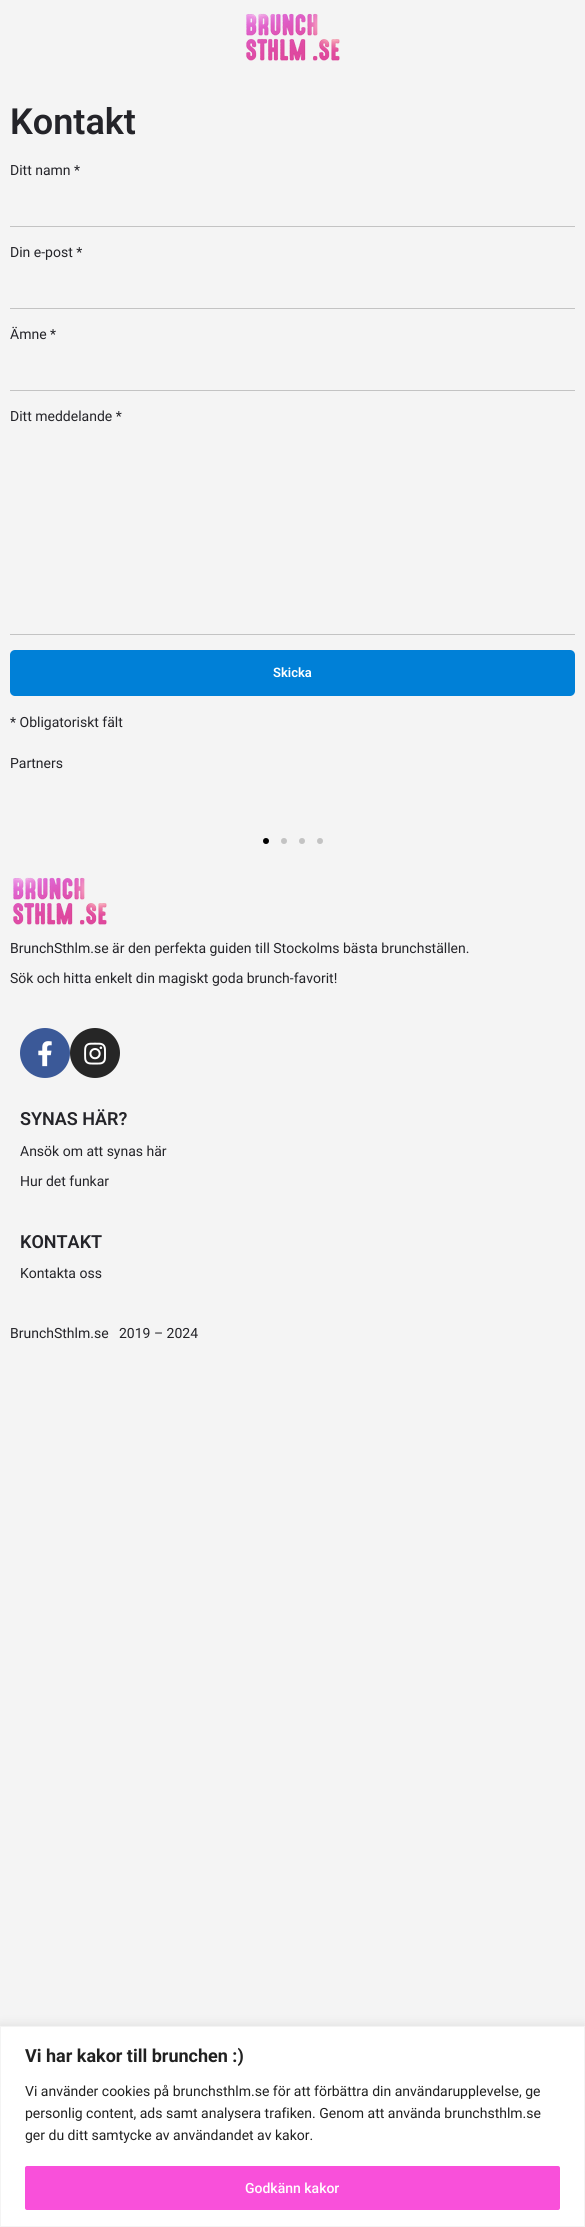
import math
import cairo


def round_path(ctx, x, y, w, h, r):
	ctx.new_sub_path()
	for i, (u, v) in enumerate([(x + w - r, y + h - r), (x + r, y + h - r), (x + r, y + r), (x + w - r, y + r)]):
		ctx.arc(u, v, r, i * math.pi / 2, (i + 1) * math.pi / 2)
	ctx.close_path()

def blur_box(ctx, x, y, w, h, r, blur, alpha):
	ctx.push_group_with_content(cairo.CONTENT_ALPHA)
	ctx.set_operator(cairo.OPERATOR_SOURCE)
	for i in range(15, -16, -2):
		e = blur * i / 6
		if min(w, h) + 2 * e > 0:
			ctx.set_source_rgba(0, 0, 0, alpha * math.erfc((i - 1) / 8.5) / 2)
			round_path(ctx, x - e, y - e, w + 2 * e, h + 2 * e, max(0, min(r + e + blur * .6, min(w, h) / 2 + e)))
			ctx.fill()
	ctx.mask(ctx.pop_group())

def paste(ctx, path, x, y, w, h):
	ctx.save()
	ctx.set_source_surface(cairo.ImageSurface.create_from_png(path), x, y)
	ctx.rectangle(x, y, w, h)
	ctx.fill()
	ctx.restore()

def draw(ctx):
	ctx.set_source_rgb(0.957, 0.957, 0.957)
	ctx.paint()
	paste(ctx, 'media/1.png', 246, 13, 94, 48)
	ctx.select_font_face('Roboto SemiBold')
	ctx.set_font_size(36)
	ctx.set_source_rgb(0.141, 0.141, 0.161)
	ctx.move_to(10, 134)
	ctx.show_text('Kontakt')
	ctx.select_font_face('Roboto')
	ctx.set_font_size(14)
	ctx.move_to(10, 175)
	ctx.show_text('Ditt namn *')
	ctx.set_source_rgb(0.765, 0.765, 0.765)
	ctx.rectangle(10, 226, 565, 1)
	ctx.fill()
	ctx.set_source_rgb(0.141, 0.141, 0.161)
	ctx.move_to(10, 257)
	ctx.show_text('Din e-post *')
	ctx.set_source_rgb(0.765, 0.765, 0.765)
	ctx.rectangle(10, 308, 565, 1)
	ctx.fill()
	ctx.set_source_rgb(0.141, 0.141, 0.161)
	ctx.move_to(10, 339)
	ctx.show_text('Ämne *')
	ctx.set_source_rgb(0.765, 0.765, 0.765)
	ctx.rectangle(10, 390, 565, 1)
	ctx.fill()
	ctx.set_source_rgb(0.141, 0.141, 0.161)
	ctx.move_to(10, 421)
	ctx.show_text('Ditt meddelande *')
	ctx.set_source_rgb(0.765, 0.765, 0.765)
	ctx.rectangle(10, 634, 565, 1)
	ctx.fill()
	ctx.set_source_rgb(0, 0.502, 0.843)
	round_path(ctx, 10, 650, 565, 46, 5)
	ctx.fill()
	ctx.select_font_face('Roboto SemiBold')
	ctx.set_font_size(13)
	ctx.set_source_rgb(1, 1, 1)
	ctx.move_to(273, 677)
	ctx.show_text('Skicka')
	ctx.select_font_face('Roboto')
	ctx.set_font_size(14)
	ctx.set_source_rgb(0.141, 0.141, 0.161)
	ctx.move_to(10, 727)
	ctx.show_text('* Obligatoriskt fält')
	ctx.move_to(10, 768)
	ctx.show_text('Partners')
	ctx.set_source_rgb(0, 0, 0)
	ctx.new_path()
	ctx.arc(266, 841, 3, 0, 2 * math.pi)
	ctx.fill()
	ctx.set_source_rgb(0.765, 0.765, 0.765)
	ctx.arc(284, 841, 3, 0, 2 * math.pi)
	ctx.fill()
	ctx.arc(302, 841, 3, 0, 2 * math.pi)
	ctx.fill()
	ctx.arc(320, 841, 3, 0, 2 * math.pi)
	ctx.fill()
	paste(ctx, 'media/1.png', 13, 877, 94, 48)
	ctx.set_source_rgb(0.141, 0.141, 0.161)
	ctx.move_to(10, 953)
	ctx.show_text('BrunchSthlm.se är den perfekta guiden till Stockolms bästa brunchställen.')
	ctx.move_to(10, 983)
	ctx.show_text('Sök och hitta enkelt din magiskt goda brunch-favorit!')
	ctx.set_source_rgb(0.231, 0.349, 0.596)
	ctx.new_path()
	ctx.arc(45, 1053, 25, 0, 2 * math.pi)
	ctx.fill()
	paste(ctx, 'media/2.png', 38, 1041, 14, 26)
	ctx.set_source_rgb(0.149, 0.149, 0.149)
	ctx.arc(95, 1053, 25, 0, 2 * math.pi)
	ctx.fill()
	paste(ctx, 'media/3.png', 84, 1042, 22, 23)
	ctx.select_font_face('Roboto SemiBold')
	ctx.set_font_size(18)
	ctx.set_source_rgb(0.141, 0.141, 0.161)
	ctx.move_to(20, 1125)
	ctx.show_text('SYNAS HÄR?')
	ctx.select_font_face('Roboto')
	ctx.set_font_size(14)
	ctx.move_to(20, 1156)
	ctx.show_text('Ansök om att synas här')
	ctx.move_to(20, 1186)
	ctx.show_text('Hur det funkar')
	ctx.select_font_face('Roboto SemiBold')
	ctx.set_font_size(18)
	ctx.move_to(20, 1248)
	ctx.show_text('KONTAKT')
	ctx.select_font_face('Roboto')
	ctx.set_font_size(14)
	ctx.move_to(20, 1278)
	ctx.show_text('Kontakta oss')
	ctx.move_to(10, 1338)
	ctx.show_text('BrunchSthlm.se   2019 – 2024')
	ctx.set_source_rgb(0.675, 0.671, 0.671)
	blur_box(ctx, 0, 2025, 585, 201, 0, 5, 0.3)
	ctx.set_source_rgb(1, 1, 1)
	ctx.rectangle(0.5, 2026.5, 584, 200)
	ctx.fill_preserve()
	ctx.set_source_rgb(0.957, 0.957, 0.957)
	ctx.set_line_width(1)
	ctx.stroke()
	ctx.select_font_face('Roboto', cairo.FONT_SLANT_NORMAL, cairo.FONT_WEIGHT_BOLD)
	ctx.set_font_size(18)
	ctx.set_source_rgb(0.129, 0.129, 0.129)
	ctx.move_to(25, 2062)
	ctx.show_text('Vi har kakor till brunchen :)')
	ctx.select_font_face('Roboto')
	ctx.set_font_size(14)
	for x, y, s in [
		(25, 2096, 'Vi använder cookies på brunchsthlm.se för att förbättra din användarupplevelse, ge'),
		(25, 2118, 'personlig content, ads samt analysera trafiken. Genom att använda brunchsthlm.se'),
		(25, 2140, 'ger du ditt samtycke av användandet av kakor.'),
	]:
		ctx.move_to(x, y)
		ctx.show_text(s)
	ctx.set_source_rgb(0.976, 0.314, 0.855)
	round_path(ctx, 26, 2167, 533, 42, 1)
	ctx.fill_preserve()
	ctx.set_line_width(2)
	ctx.stroke()
	ctx.select_font_face('Roboto Medium')
	ctx.set_source_rgb(1, 1, 1)
	ctx.move_to(245, 2193)
	ctx.show_text('Godkänn kakor')


surface = cairo.ImageSurface(cairo.FORMAT_RGB24, 585, 2227)
ctx = cairo.Context(surface)
options = cairo.FontOptions()
options.set_hint_metrics(cairo.HINT_METRICS_OFF)
options.set_hint_style(cairo.HINT_STYLE_NONE)
ctx.set_font_options(options)
ctx.set_miter_limit(4)
draw(ctx)
surface.write_to_png('image.png')
